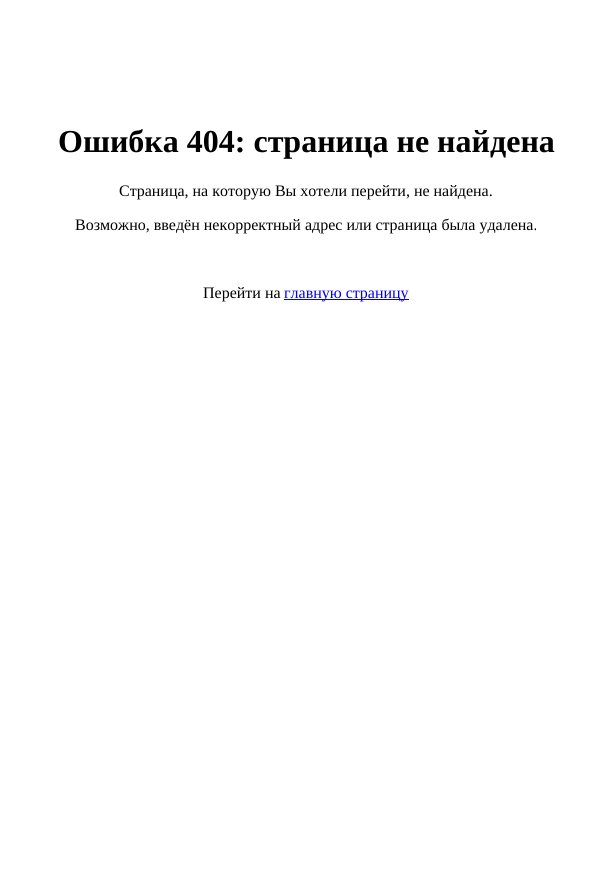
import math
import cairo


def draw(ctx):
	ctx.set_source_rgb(1, 1, 1)
	ctx.paint()
	ctx.select_font_face('Liberation Serif', cairo.FONT_SLANT_NORMAL, cairo.FONT_WEIGHT_BOLD)
	ctx.set_font_size(32)
	ctx.set_source_rgb(0, 0, 0)
	ctx.move_to(58, 152)
	ctx.show_text('Ошибка 404: страница не найдена')
	ctx.select_font_face('Liberation Serif')
	ctx.set_font_size(16)
	for x, y, s in [
		(119, 196, 'Страница, на которую Вы хотели перейти, не найдена.'),
		(75, 230, 'Возможно, введён некорректный адрес или страница была удалена.'),
		(203, 298, 'Перейти на'),
	]:
		ctx.move_to(x, y)
		ctx.show_text(s)
	ctx.set_source_rgb(0, 0, 0.933)
	ctx.rectangle(284, 299, 125, 1)
	ctx.fill()
	ctx.move_to(284, 298)
	ctx.show_text('главную страницу')


surface = cairo.ImageSurface(cairo.FORMAT_RGB24, 612, 890)
ctx = cairo.Context(surface)
options = cairo.FontOptions()
options.set_hint_metrics(cairo.HINT_METRICS_OFF)
options.set_hint_style(cairo.HINT_STYLE_NONE)
ctx.set_font_options(options)
ctx.set_miter_limit(4)
draw(ctx)
surface.write_to_png('image.png')
